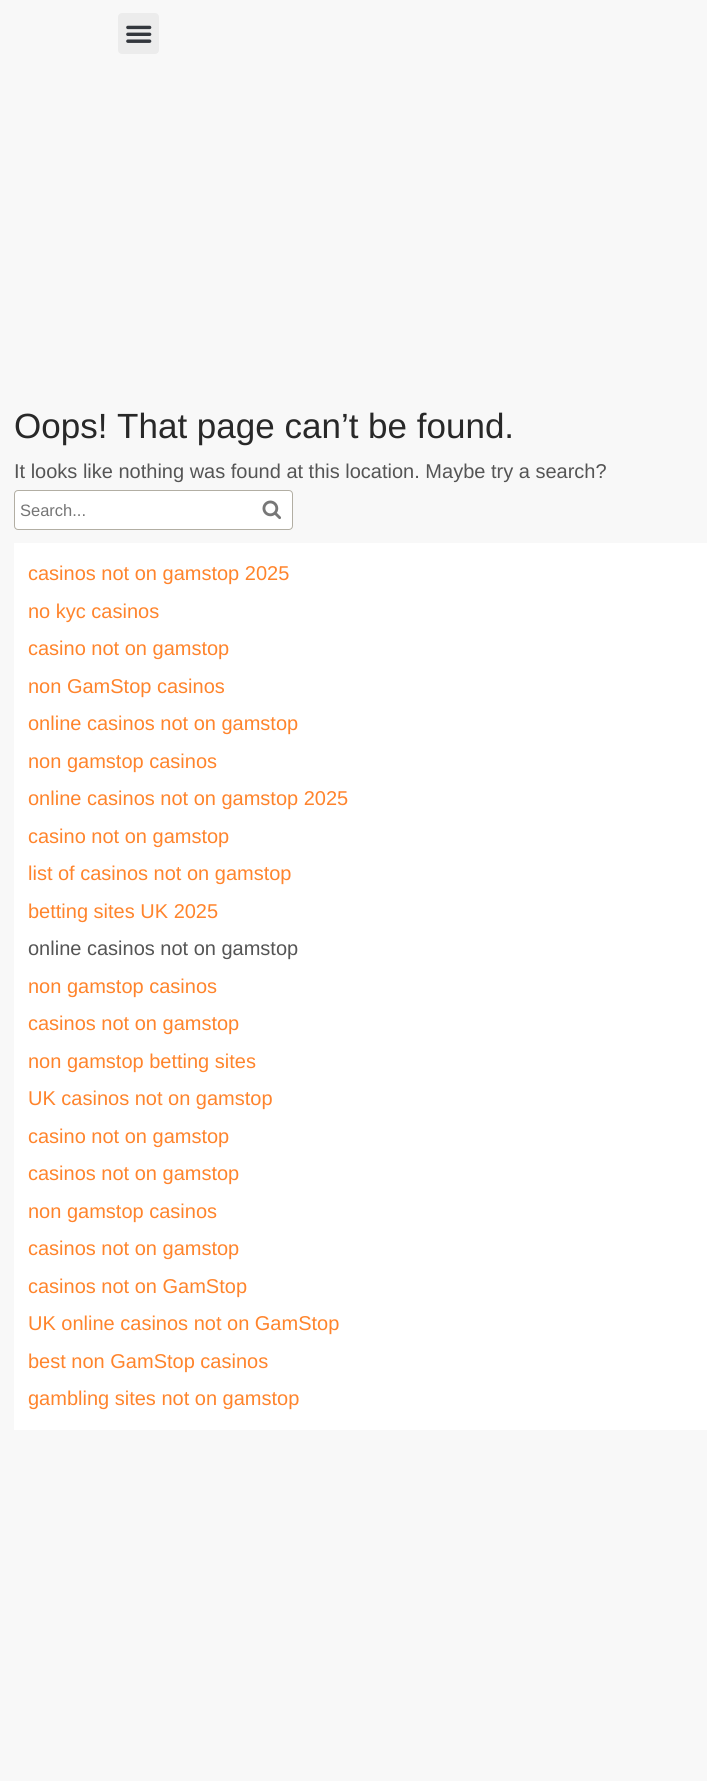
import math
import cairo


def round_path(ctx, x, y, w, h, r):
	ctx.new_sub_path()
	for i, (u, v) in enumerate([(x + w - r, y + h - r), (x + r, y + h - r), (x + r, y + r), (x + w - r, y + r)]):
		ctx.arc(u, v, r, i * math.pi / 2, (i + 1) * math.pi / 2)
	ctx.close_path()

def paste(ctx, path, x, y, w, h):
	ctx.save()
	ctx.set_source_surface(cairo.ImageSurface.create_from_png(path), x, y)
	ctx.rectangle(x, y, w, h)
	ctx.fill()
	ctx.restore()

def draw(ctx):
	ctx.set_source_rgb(0.969, 0.969, 0.969)
	ctx.paint()
	ctx.set_source_rgb(0.922, 0.922, 0.922)
	round_path(ctx, 118, 13, 41, 41, 4)
	ctx.fill()
	paste(ctx, 'media/1.png', 126, 25, 26, 18)
	ctx.select_font_face('Liberation Sans')
	ctx.set_font_size(35)
	ctx.set_source_rgb(0.157, 0.157, 0.157)
	ctx.move_to(14, 438)
	ctx.show_text('Oops! That page can’t be found.')
	ctx.set_font_size(20)
	ctx.set_source_rgb(0.333, 0.333, 0.333)
	ctx.move_to(14, 478)
	ctx.show_text('It looks like nothing was found at this location. Maybe try a search?')
	ctx.set_source_rgb(1, 1, 1)
	round_path(ctx, 14.5, 490.5, 278, 39, 3.5)
	ctx.fill_preserve()
	ctx.set_source_rgb(0.698, 0.682, 0.639)
	ctx.set_line_width(1)
	ctx.stroke()
	ctx.set_font_size(16.5)
	ctx.set_source_rgb(0.459, 0.459, 0.459)
	ctx.move_to(20, 516)
	ctx.show_text('Search...')
	paste(ctx, 'media/2.png', 262, 500, 19, 20)
	ctx.set_source_rgb(1, 1, 1)
	ctx.rectangle(14, 543, 693, 887)
	ctx.fill()
	ctx.set_font_size(20)
	ctx.set_source_rgb(1, 0.518, 0.173)
	for x, y, s in [
		(28, 580, 'casinos not on gamstop 2025'),
		(28, 618, 'no kyc casinos'),
		(28, 655, 'casino not on gamstop'),
		(28, 693, 'non GamStop casinos'),
		(28, 730, 'online casinos not on gamstop'),
		(28, 768, 'non gamstop casinos'),
		(28, 805, 'online casinos not on gamstop 2025'),
		(28, 843, 'casino not on gamstop'),
		(28, 880, 'list of casinos not on gamstop'),
		(28, 918, 'betting sites UK 2025'),
	]:
		ctx.move_to(x, y)
		ctx.show_text(s)
	ctx.set_source_rgb(0.333, 0.333, 0.333)
	ctx.move_to(28, 955)
	ctx.show_text('online casinos not on gamstop')
	ctx.set_source_rgb(1, 0.518, 0.173)
	for x, y, s in [
		(28, 993, 'non gamstop casinos'),
		(28, 1030, 'casinos not on gamstop'),
		(28, 1068, 'non gamstop betting sites'),
		(28, 1105, 'UK casinos not on gamstop'),
		(28, 1143, 'casino not on gamstop'),
		(28, 1180, 'casinos not on gamstop'),
		(28, 1218, 'non gamstop casinos'),
		(28, 1255, 'casinos not on gamstop'),
		(28, 1293, 'casinos not on GamStop'),
		(28, 1330, 'UK online casinos not on GamStop'),
		(28, 1368, 'best non GamStop casinos'),
		(28, 1405, 'gambling sites not on gamstop'),
	]:
		ctx.move_to(x, y)
		ctx.show_text(s)


surface = cairo.ImageSurface(cairo.FORMAT_RGB24, 707, 1781)
ctx = cairo.Context(surface)
options = cairo.FontOptions()
options.set_hint_metrics(cairo.HINT_METRICS_OFF)
options.set_hint_style(cairo.HINT_STYLE_NONE)
ctx.set_font_options(options)
ctx.set_miter_limit(4)
draw(ctx)
surface.write_to_png('image.png')
